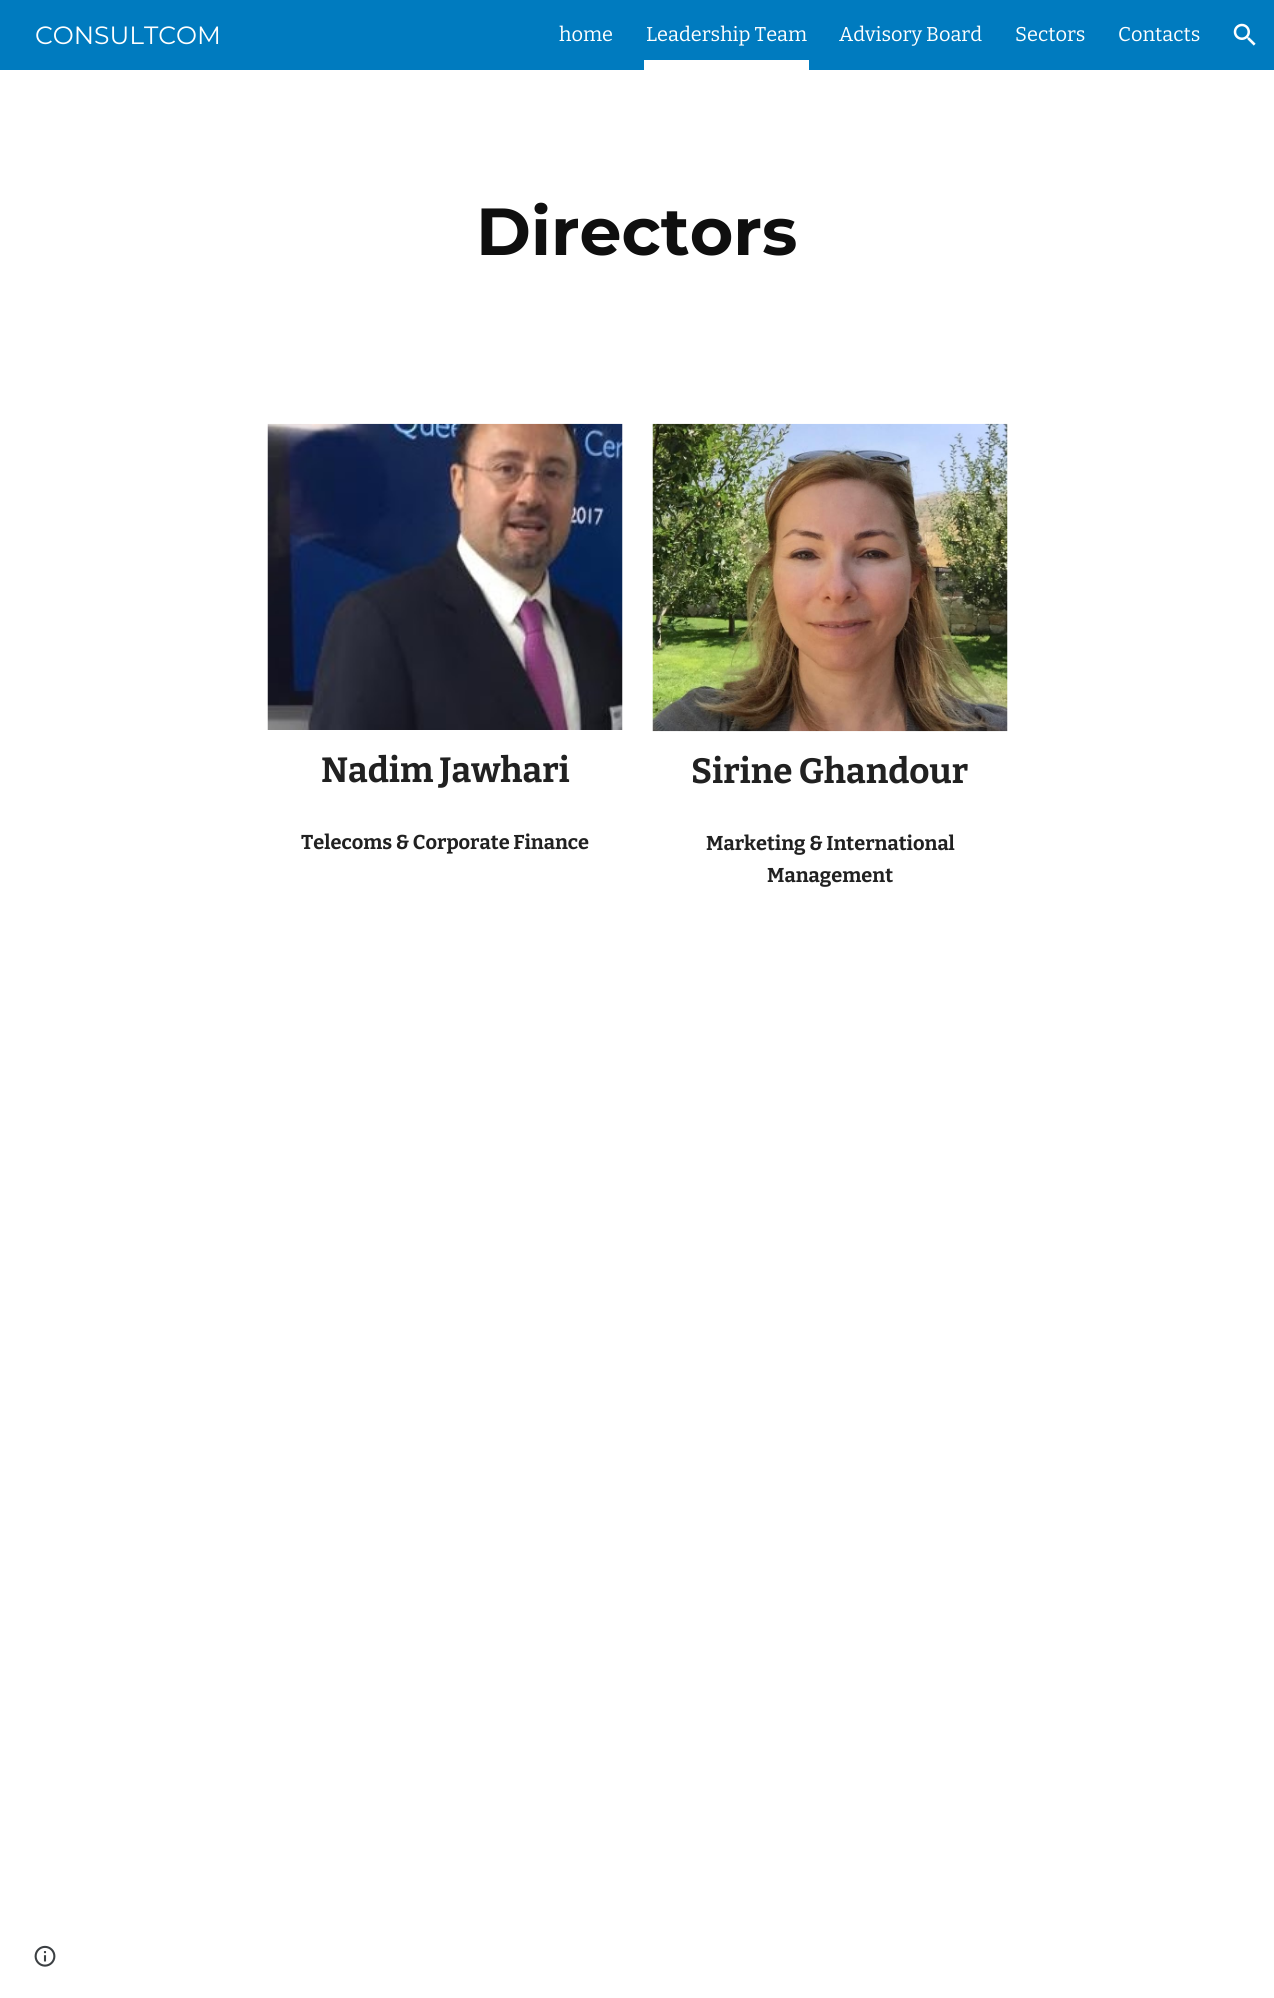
import math
import cairo


def paste(ctx, path, x, y, w, h):
	ctx.save()
	ctx.set_source_surface(cairo.ImageSurface.create_from_png(path), x, y)
	ctx.rectangle(x, y, w, h)
	ctx.fill()
	ctx.restore()

def draw(ctx):
	ctx.set_source_rgb(1, 1, 1)
	ctx.paint()
	ctx.set_source_rgb(0, 0.482, 0.749)
	ctx.rectangle(0, 0, 1274, 70)
	ctx.fill()
	ctx.select_font_face('Montserrat')
	ctx.set_font_size(25)
	ctx.set_source_rgb(1, 1, 1)
	ctx.move_to(35, 44)
	ctx.show_text('CONSULTCOM')
	ctx.select_font_face('Bitter')
	ctx.set_font_size(20)
	ctx.move_to(559, 41)
	ctx.show_text('home')
	ctx.rectangle(644, 60, 165, 10)
	ctx.fill()
	for x, y, s in [
		(646, 41, 'Leadership Team'),
		(839, 41, 'Advisory Board'),
		(1015, 41, 'Sectors'),
		(1118, 41, 'Contacts'),
	]:
		ctx.move_to(x, y)
		ctx.show_text(s)
	paste(ctx, 'media/1.png', 1233, 23, 23, 23)
	ctx.select_font_face('Montserrat', cairo.FONT_SLANT_NORMAL, cairo.FONT_WEIGHT_BOLD)
	ctx.set_font_size(66.5)
	ctx.set_source_rgb(0.059, 0.059, 0.059)
	ctx.move_to(476, 255)
	ctx.show_text('Directors')
	paste(ctx, 'media/2.png', 267, 423, 356, 307)
	ctx.select_font_face('Bitter', cairo.FONT_SLANT_NORMAL, cairo.FONT_WEIGHT_BOLD)
	ctx.set_font_size(35)
	ctx.set_source_rgb(0.129, 0.129, 0.129)
	ctx.move_to(321, 782)
	ctx.show_text('Nadim Jawhari')
	ctx.set_font_size(20)
	ctx.move_to(301, 849)
	ctx.show_text('Telecoms & Corporate Finance')
	paste(ctx, 'media/3.png', 652, 423, 356, 309)
	ctx.set_font_size(35)
	ctx.move_to(691, 783)
	ctx.show_text('Sirine Ghandour')
	ctx.set_font_size(20)
	ctx.move_to(706, 850)
	ctx.show_text('Marketing & International')
	ctx.move_to(767, 882)
	ctx.show_text('Management')
	paste(ctx, 'media/4.png', 34, 1945, 22, 22)


surface = cairo.ImageSurface(cairo.FORMAT_RGB24, 1274, 1998)
ctx = cairo.Context(surface)
options = cairo.FontOptions()
options.set_hint_metrics(cairo.HINT_METRICS_OFF)
options.set_hint_style(cairo.HINT_STYLE_NONE)
ctx.set_font_options(options)
ctx.set_miter_limit(4)
draw(ctx)
surface.write_to_png('image.png')
